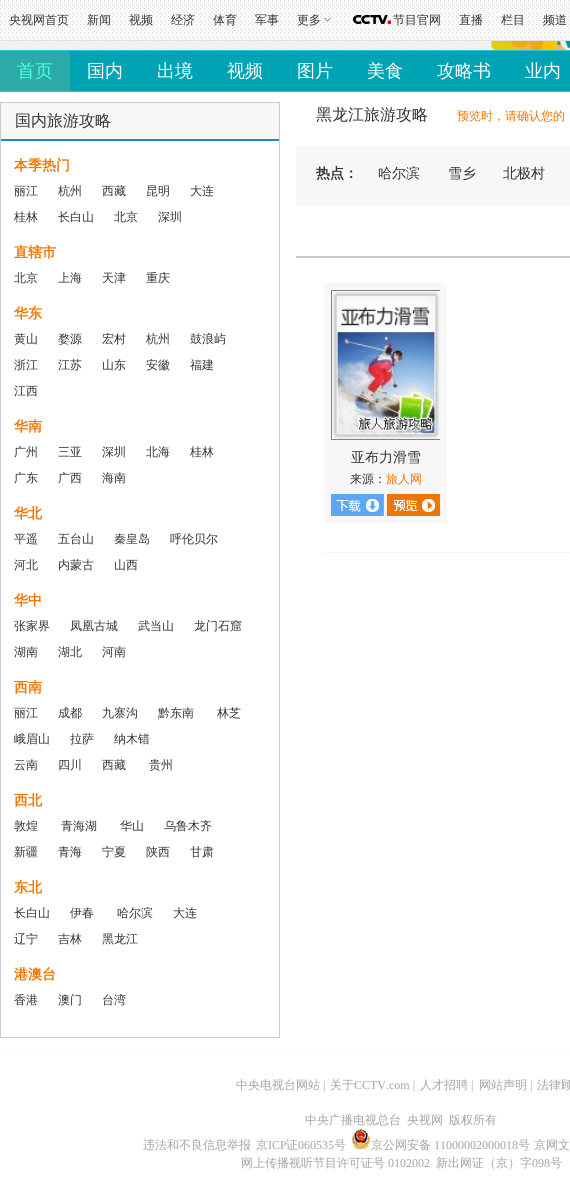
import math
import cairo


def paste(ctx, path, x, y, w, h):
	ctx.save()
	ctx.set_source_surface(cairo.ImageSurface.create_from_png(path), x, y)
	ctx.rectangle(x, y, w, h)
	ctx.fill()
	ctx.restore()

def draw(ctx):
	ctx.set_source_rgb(1, 1, 1)
	ctx.paint()
	paste(ctx, 'media/1.png', 0, 0, 570, 40)
	ctx.set_source_rgb(0.882, 0.882, 0.882)
	ctx.rectangle(0, 40, 570, 1)
	ctx.fill()
	ctx.select_font_face('WenQuanYi Zen Hei Medium')
	ctx.set_font_size(12)
	ctx.set_source_rgb(0.2, 0.2, 0.2)
	for x, y, s in [
		(9, 24, '央视网首页'),
		(87, 24, '新闻'),
		(129, 24, '视频'),
		(171, 24, '经济'),
		(213, 24, '体育'),
		(255, 24, '军事'),
		(297, 24, '更多'),
	]:
		ctx.move_to(x, y)
		ctx.show_text(s)
	paste(ctx, 'media/2.png', 324, 18, 7, 4)
	paste(ctx, 'media/3.png', 353, 15, 38, 9)
	for x, y, s in [
		(393, 24, '节目官网'),
		(459, 24, '直播'),
		(501, 24, '栏目'),
		(543, 24, '频道'),
	]:
		ctx.move_to(x, y)
		ctx.show_text(s)
	paste(ctx, 'media/4.png', 0, 41, 570, 9)
	ctx.set_source_rgb(0, 0.639, 0.706)
	ctx.rectangle(70, 51, 500, 40)
	ctx.fill()
	ctx.set_source_rgb(0.169, 0.776, 0.839)
	ctx.rectangle(0, 50, 570, 1)
	ctx.rectangle(0, 91, 570, 1)
	ctx.fill()
	ctx.set_source_rgb(0.169, 0.667, 0.667)
	ctx.rectangle(0, 51, 70, 40)
	ctx.fill()
	ctx.set_font_size(18)
	ctx.set_source_rgb(0.294, 1, 0.875)
	ctx.move_to(17, 77)
	ctx.show_text('首页')
	ctx.set_source_rgb(1, 1, 1)
	for x, y, s in [
		(87, 77, '国内'),
		(157, 77, '出境'),
		(227, 77, '视频'),
		(297, 77, '图片'),
		(367, 77, '美食'),
		(437, 77, '攻略书'),
		(525, 77, '业内'),
	]:
		ctx.move_to(x, y)
		ctx.show_text(s)
	ctx.rectangle(0.5, 102.5, 279, 935)
	ctx.set_source_rgb(0.8, 0.8, 0.8)
	ctx.set_line_width(1)
	ctx.stroke()
	ctx.set_source_rgb(0.965, 0.965, 0.965)
	ctx.rectangle(1, 103, 278, 35)
	ctx.fill()
	ctx.set_source_rgb(0.102, 0.537, 0.812)
	ctx.rectangle(1, 139, 278, 2)
	ctx.fill()
	ctx.set_font_size(16)
	ctx.set_source_rgb(0.2, 0.2, 0.2)
	ctx.move_to(15, 126)
	ctx.show_text('国内旅游攻略')
	ctx.select_font_face('WenQuanYi Zen Hei', cairo.FONT_SLANT_NORMAL, cairo.FONT_WEIGHT_BOLD)
	ctx.set_font_size(14)
	ctx.set_source_rgb(0.957, 0.455, 0)
	ctx.move_to(14, 170)
	ctx.show_text('本季热门')
	ctx.select_font_face('WenQuanYi Zen Hei Medium')
	ctx.set_font_size(12)
	ctx.set_source_rgb(0.2, 0.2, 0.2)
	for x, y, s in [
		(14, 195, '丽江'),
		(58, 195, '杭州'),
		(102, 195, '西藏'),
		(146, 195, '昆明'),
		(190, 195, '大连'),
		(14, 221, '桂林'),
		(58, 221, '长白山'),
		(114, 221, '北京'),
		(158, 221, '深圳'),
	]:
		ctx.move_to(x, y)
		ctx.show_text(s)
	ctx.select_font_face('WenQuanYi Zen Hei', cairo.FONT_SLANT_NORMAL, cairo.FONT_WEIGHT_BOLD)
	ctx.set_font_size(14)
	ctx.set_source_rgb(0.957, 0.455, 0)
	ctx.move_to(14, 257)
	ctx.show_text('直辖市')
	ctx.select_font_face('WenQuanYi Zen Hei Medium')
	ctx.set_font_size(12)
	ctx.set_source_rgb(0.2, 0.2, 0.2)
	for x, y, s in [
		(14, 282, '北京'),
		(58, 282, '上海'),
		(102, 282, '天津'),
		(146, 282, '重庆'),
	]:
		ctx.move_to(x, y)
		ctx.show_text(s)
	ctx.select_font_face('WenQuanYi Zen Hei', cairo.FONT_SLANT_NORMAL, cairo.FONT_WEIGHT_BOLD)
	ctx.set_font_size(14)
	ctx.set_source_rgb(0.957, 0.455, 0)
	ctx.move_to(14, 318)
	ctx.show_text('华东')
	ctx.select_font_face('WenQuanYi Zen Hei Medium')
	ctx.set_font_size(12)
	ctx.set_source_rgb(0.2, 0.2, 0.2)
	for x, y, s in [
		(14, 343, '黄山'),
		(58, 343, '婺源'),
		(102, 343, '宏村'),
		(146, 343, '杭州'),
		(190, 343, '鼓浪屿'),
		(14, 369, '浙江'),
		(58, 369, '江苏'),
		(102, 369, '山东'),
		(146, 369, '安徽'),
		(190, 369, '福建'),
		(14, 395, '江西'),
	]:
		ctx.move_to(x, y)
		ctx.show_text(s)
	ctx.select_font_face('WenQuanYi Zen Hei', cairo.FONT_SLANT_NORMAL, cairo.FONT_WEIGHT_BOLD)
	ctx.set_font_size(14)
	ctx.set_source_rgb(0.957, 0.455, 0)
	ctx.move_to(14, 431)
	ctx.show_text('华南')
	ctx.select_font_face('WenQuanYi Zen Hei Medium')
	ctx.set_font_size(12)
	ctx.set_source_rgb(0.2, 0.2, 0.2)
	for x, y, s in [
		(14, 456, '广州'),
		(58, 456, '三亚'),
		(102, 456, '深圳'),
		(146, 456, '北海'),
		(190, 456, '桂林'),
		(14, 482, '广东'),
		(58, 482, '广西'),
		(102, 482, '海南'),
	]:
		ctx.move_to(x, y)
		ctx.show_text(s)
	ctx.select_font_face('WenQuanYi Zen Hei', cairo.FONT_SLANT_NORMAL, cairo.FONT_WEIGHT_BOLD)
	ctx.set_font_size(14)
	ctx.set_source_rgb(0.957, 0.455, 0)
	ctx.move_to(14, 518)
	ctx.show_text('华北')
	ctx.select_font_face('WenQuanYi Zen Hei Medium')
	ctx.set_font_size(12)
	ctx.set_source_rgb(0.2, 0.2, 0.2)
	for x, y, s in [
		(14, 543, '平遥'),
		(58, 543, '五台山'),
		(114, 543, '秦皇岛'),
		(170, 543, '呼伦贝尔'),
		(14, 569, '河北'),
		(58, 569, '内蒙古'),
		(114, 569, '山西'),
	]:
		ctx.move_to(x, y)
		ctx.show_text(s)
	ctx.select_font_face('WenQuanYi Zen Hei', cairo.FONT_SLANT_NORMAL, cairo.FONT_WEIGHT_BOLD)
	ctx.set_font_size(14)
	ctx.set_source_rgb(0.957, 0.455, 0)
	ctx.move_to(14, 605)
	ctx.show_text('华中')
	ctx.select_font_face('WenQuanYi Zen Hei Medium')
	ctx.set_font_size(12)
	ctx.set_source_rgb(0.2, 0.2, 0.2)
	for x, y, s in [
		(14, 630, '张家界'),
		(70, 630, '凤凰古城'),
		(138, 630, '武当山'),
		(194, 630, '龙门石窟'),
		(14, 656, '湖南'),
		(58, 656, '湖北'),
		(102, 656, '河南'),
	]:
		ctx.move_to(x, y)
		ctx.show_text(s)
	ctx.select_font_face('WenQuanYi Zen Hei', cairo.FONT_SLANT_NORMAL, cairo.FONT_WEIGHT_BOLD)
	ctx.set_font_size(14)
	ctx.set_source_rgb(0.957, 0.455, 0)
	ctx.move_to(14, 692)
	ctx.show_text('西南')
	ctx.select_font_face('WenQuanYi Zen Hei Medium')
	ctx.set_font_size(12)
	ctx.set_source_rgb(0.2, 0.2, 0.2)
	for x, y, s in [
		(14, 717, '丽江'),
		(58, 717, '成都'),
		(102, 717, '九寨沟'),
		(158, 717, '黔东南'),
		(217, 717, '林芝'),
		(14, 743, '峨眉山'),
		(70, 743, '拉萨'),
		(114, 743, '纳木错'),
		(14, 769, '云南'),
		(58, 769, '四川'),
		(102, 769, '西藏'),
		(149, 769, '贵州'),
	]:
		ctx.move_to(x, y)
		ctx.show_text(s)
	ctx.select_font_face('WenQuanYi Zen Hei', cairo.FONT_SLANT_NORMAL, cairo.FONT_WEIGHT_BOLD)
	ctx.set_font_size(14)
	ctx.set_source_rgb(0.957, 0.455, 0)
	ctx.move_to(14, 805)
	ctx.show_text('西北')
	ctx.select_font_face('WenQuanYi Zen Hei Medium')
	ctx.set_font_size(12)
	ctx.set_source_rgb(0.2, 0.2, 0.2)
	for x, y, s in [
		(14, 830, '敦煌'),
		(61, 830, '青海湖'),
		(120, 830, '华山'),
		(164, 830, '乌鲁木齐'),
		(14, 856, '新疆'),
		(58, 856, '青海'),
		(102, 856, '宁夏'),
		(146, 856, '陕西'),
		(190, 856, '甘肃'),
	]:
		ctx.move_to(x, y)
		ctx.show_text(s)
	ctx.select_font_face('WenQuanYi Zen Hei', cairo.FONT_SLANT_NORMAL, cairo.FONT_WEIGHT_BOLD)
	ctx.set_font_size(14)
	ctx.set_source_rgb(0.957, 0.455, 0)
	ctx.move_to(14, 892)
	ctx.show_text('东北')
	ctx.select_font_face('WenQuanYi Zen Hei Medium')
	ctx.set_font_size(12)
	ctx.set_source_rgb(0.2, 0.2, 0.2)
	for x, y, s in [
		(14, 917, '长白山'),
		(70, 917, '伊春'),
		(117, 917, '哈尔滨'),
		(173, 917, '大连'),
		(14, 943, '辽宁'),
		(58, 943, '吉林'),
		(102, 943, '黑龙江'),
	]:
		ctx.move_to(x, y)
		ctx.show_text(s)
	ctx.select_font_face('WenQuanYi Zen Hei', cairo.FONT_SLANT_NORMAL, cairo.FONT_WEIGHT_BOLD)
	ctx.set_font_size(14)
	ctx.set_source_rgb(0.957, 0.455, 0)
	ctx.move_to(14, 979)
	ctx.show_text('港澳台')
	ctx.select_font_face('WenQuanYi Zen Hei Medium')
	ctx.set_font_size(12)
	ctx.set_source_rgb(0.2, 0.2, 0.2)
	for x, y, s in [
		(14, 1004, '香港'),
		(58, 1004, '澳门'),
		(102, 1004, '台湾'),
	]:
		ctx.move_to(x, y)
		ctx.show_text(s)
	ctx.set_source_rgb(0.788, 0.788, 0.788)
	ctx.rectangle(296, 256, 274, 2)
	ctx.fill()
	ctx.set_font_size(16)
	ctx.set_source_rgb(0.2, 0.2, 0.2)
	ctx.move_to(316, 120)
	ctx.show_text('黑龙江旅游攻略')
	ctx.set_font_size(12)
	ctx.set_source_rgb(0.957, 0.455, 0)
	ctx.move_to(457, 120)
	ctx.show_text('预览时，请确认您的')
	ctx.set_source_rgb(0.965, 0.965, 0.965)
	ctx.rectangle(296, 146, 274, 60)
	ctx.fill()
	ctx.select_font_face('WenQuanYi Zen Hei', cairo.FONT_SLANT_NORMAL, cairo.FONT_WEIGHT_BOLD)
	ctx.set_font_size(14)
	ctx.set_source_rgb(0.2, 0.2, 0.2)
	ctx.move_to(316, 178)
	ctx.show_text('热点：')
	ctx.select_font_face('WenQuanYi Zen Hei Medium')
	for x, y, s in [
		(378, 178, '哈尔滨'),
		(448, 178, '雪乡'),
		(503, 178, '北极村'),
	]:
		ctx.move_to(x, y)
		ctx.show_text(s)
	ctx.new_path()
	ctx.move_to(324, 552.5)
	ctx.line_to(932, 552.5)
	ctx.set_source_rgb(0.922, 0.922, 0.922)
	ctx.set_dash([1, 1])
	ctx.stroke()
	ctx.set_source_rgb(0.965, 0.965, 0.965)
	ctx.rectangle(324, 283, 123, 240)
	ctx.fill()
	ctx.rectangle(331.5, 290.5, 108, 149)
	ctx.set_source_rgb(0.514, 0.506, 0.51)
	ctx.set_dash([])
	ctx.stroke()
	paste(ctx, 'media/5.png', 332, 291, 108, 148)
	ctx.set_source_rgb(0.2, 0.2, 0.2)
	ctx.move_to(351, 462)
	ctx.show_text('亚布力滑雪')
	ctx.set_font_size(12)
	ctx.move_to(350, 483)
	ctx.show_text('来源：')
	ctx.set_source_rgb(0.957, 0.455, 0)
	ctx.move_to(386, 483)
	ctx.show_text('旅人网')
	paste(ctx, 'media/6.png', 331, 494, 53, 22)
	paste(ctx, 'media/7.png', 387, 494, 53, 22)
	ctx.set_source_rgb(0.988, 0.988, 0.992)
	ctx.rectangle(0, 1048, 570, 1)
	ctx.fill()
	ctx.set_source_rgb(0.639, 0.639, 0.639)
	ctx.move_to(236, 1089)
	ctx.show_text('中央电视台网站')
	ctx.select_font_face('Liberation Serif')
	ctx.move_to(323, 1089)
	ctx.show_text('|')
	ctx.select_font_face('WenQuanYi Zen Hei Medium')
	ctx.move_to(330, 1089)
	ctx.show_text('关于')
	ctx.select_font_face('Liberation Serif')
	ctx.move_to(354, 1089)
	ctx.show_text('CCTV.com |')
	ctx.select_font_face('WenQuanYi Zen Hei Medium')
	ctx.move_to(420, 1089)
	ctx.show_text('人才招聘')
	ctx.select_font_face('Liberation Serif')
	ctx.move_to(471, 1089)
	ctx.show_text('|')
	ctx.select_font_face('WenQuanYi Zen Hei Medium')
	ctx.move_to(479, 1089)
	ctx.show_text('网站声明')
	ctx.select_font_face('Liberation Serif')
	ctx.move_to(530, 1089)
	ctx.show_text('|')
	ctx.select_font_face('WenQuanYi Zen Hei Medium')
	for x, y, s in [
		(537, 1089, '法律顾'),
		(305, 1124, '中央广播电视总台'),
		(407, 1124, '央视网'),
		(449, 1124, '版权所有'),
		(143, 1149, '违法和不良信息举报'),
		(256, 1149, '京'),
	]:
		ctx.move_to(x, y)
		ctx.show_text(s)
	ctx.select_font_face('Liberation Serif')
	ctx.move_to(268, 1149)
	ctx.show_text('ICP')
	ctx.select_font_face('WenQuanYi Zen Hei Medium')
	ctx.move_to(286, 1149)
	ctx.show_text('证')
	ctx.select_font_face('Liberation Serif')
	ctx.move_to(298, 1149)
	ctx.show_text('060535')
	ctx.select_font_face('WenQuanYi Zen Hei Medium')
	ctx.move_to(334, 1149)
	ctx.show_text('号')
	paste(ctx, 'media/8.png', 352, 1129, 18, 20)
	ctx.move_to(371, 1149)
	ctx.show_text('京公网安备')
	ctx.select_font_face('Liberation Serif')
	ctx.move_to(434, 1149)
	ctx.show_text('11000002000018')
	ctx.select_font_face('WenQuanYi Zen Hei Medium')
	for x, y, s in [
		(518, 1149, '号'),
		(534, 1149, '京网文'),
		(241, 1167, '网上传播视听节目许可证号'),
	]:
		ctx.move_to(x, y)
		ctx.show_text(s)
	ctx.select_font_face('Liberation Serif')
	ctx.move_to(388, 1167)
	ctx.show_text('0102002')
	ctx.select_font_face('WenQuanYi Zen Hei Medium')
	ctx.move_to(436, 1167)
	ctx.show_text('新出网证（京）字')
	ctx.select_font_face('Liberation Serif')
	ctx.move_to(532, 1167)
	ctx.show_text('098')
	ctx.select_font_face('WenQuanYi Zen Hei Medium')
	ctx.move_to(550, 1167)
	ctx.show_text('号')


surface = cairo.ImageSurface(cairo.FORMAT_RGB24, 570, 1191)
ctx = cairo.Context(surface)
options = cairo.FontOptions()
options.set_hint_metrics(cairo.HINT_METRICS_OFF)
options.set_hint_style(cairo.HINT_STYLE_NONE)
ctx.set_font_options(options)
ctx.set_miter_limit(4)
draw(ctx)
surface.write_to_png('image.png')
